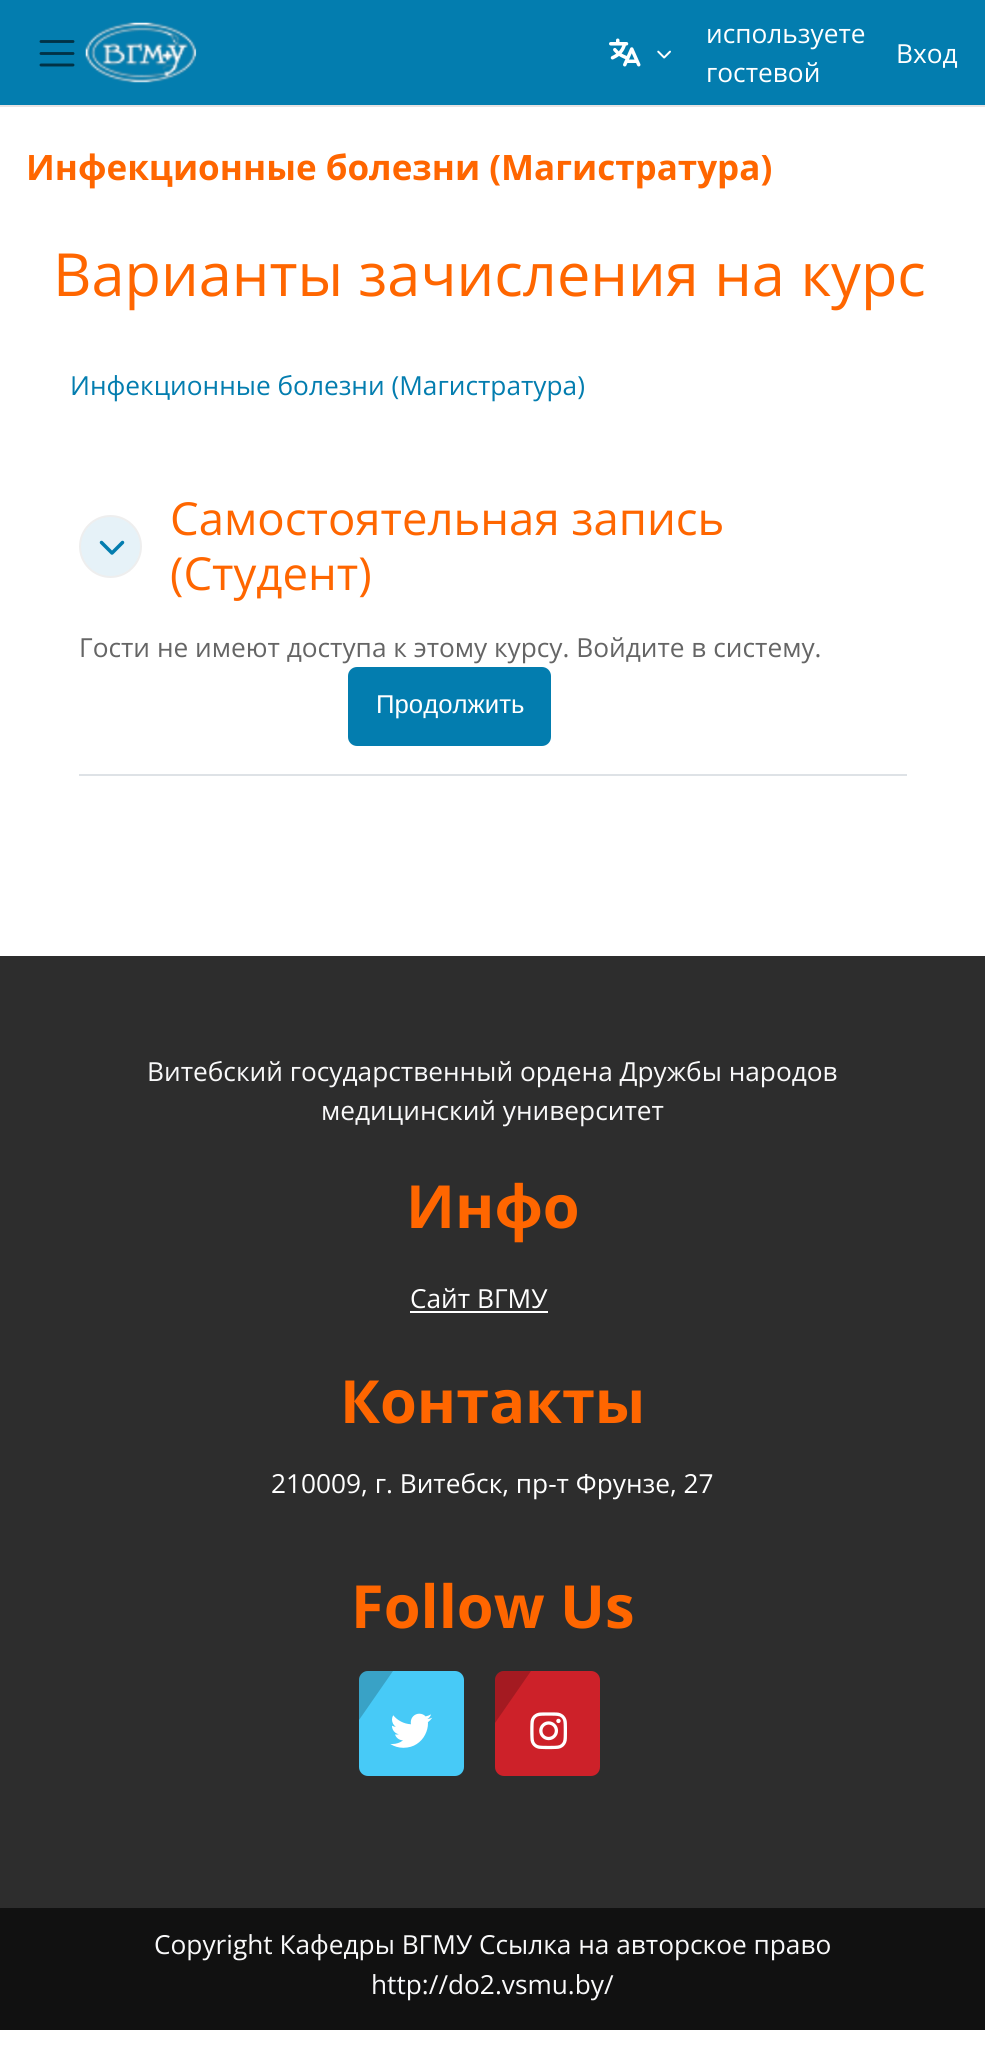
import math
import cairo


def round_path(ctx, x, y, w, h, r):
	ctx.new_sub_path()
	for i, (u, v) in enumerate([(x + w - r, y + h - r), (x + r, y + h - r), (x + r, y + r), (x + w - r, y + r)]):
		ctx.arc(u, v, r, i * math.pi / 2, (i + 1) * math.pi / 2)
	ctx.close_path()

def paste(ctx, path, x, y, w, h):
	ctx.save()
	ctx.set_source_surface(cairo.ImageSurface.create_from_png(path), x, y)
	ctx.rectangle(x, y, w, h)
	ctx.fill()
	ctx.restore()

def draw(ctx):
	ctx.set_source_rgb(1, 1, 1)
	ctx.paint()
	ctx.set_source_rgb(0.012, 0.49, 0.686)
	ctx.rectangle(0, 0, 985, 105)
	ctx.fill()
	ctx.set_source_rgb(0.91, 0.89, 0.89)
	ctx.rectangle(0, 105, 985, 2)
	ctx.fill()
	ctx.new_path()
	ctx.move_to(41, 41.5)
	ctx.line_to(73, 41.5)
	ctx.move_to(41, 53.5)
	ctx.line_to(73, 53.5)
	ctx.move_to(41, 65)
	ctx.line_to(73, 65)
	ctx.set_source_rgb(0.004, 0.196, 0.275)
	ctx.set_line_width(2.9)
	ctx.set_line_cap(cairo.LINE_CAP_ROUND)
	ctx.stroke()
	paste(ctx, 'media/1.png', 85, 22, 112, 61)
	paste(ctx, 'media/2.png', 609, 38, 32, 29)
	paste(ctx, 'media/3.png', 657, 50, 14, 9)
	ctx.select_font_face('Open Sans')
	ctx.set_font_size(26.25)
	ctx.set_source_rgb(1, 1, 1)
	for x, y, s in [
		(706, 43, 'используете'),
		(896, 63, 'Вход'),
		(706, 82, 'гостевой'),
	]:
		ctx.move_to(x, y)
		ctx.show_text(s)
	ctx.select_font_face('Open Sans', cairo.FONT_SLANT_NORMAL, cairo.FONT_WEIGHT_BOLD)
	ctx.set_font_size(35)
	ctx.set_source_rgb(1, 0.4, 0)
	ctx.move_to(26, 180)
	ctx.show_text('Инфекционные болезни (Магистратура)')
	ctx.select_font_face('Open Sans')
	ctx.set_font_size(59.5)
	ctx.move_to(53, 296)
	ctx.show_text('Варианты зачисления на курс')
	ctx.set_font_size(26.25)
	ctx.set_source_rgb(0.012, 0.49, 0.686)
	ctx.move_to(70, 395)
	ctx.show_text('Инфекционные болезни (Магистратура)')
	ctx.set_source_rgb(0.871, 0.886, 0.902)
	ctx.rectangle(79, 774, 828, 2)
	ctx.fill()
	ctx.set_source_rgb(0.902, 0.949, 0.969)
	ctx.arc(110.5, 546.5, 30.5, 0, 2 * math.pi)
	ctx.fill_preserve()
	ctx.set_source_rgb(0.933, 0.933, 0.933)
	ctx.set_line_width(2)
	ctx.set_line_cap(cairo.LINE_CAP_BUTT)
	ctx.stroke()
	paste(ctx, 'media/4.png', 99, 540, 26, 15)
	ctx.set_font_size(45.5)
	ctx.set_source_rgb(1, 0.4, 0)
	ctx.move_to(170, 535)
	ctx.show_text('Самостоятельная запись')
	ctx.move_to(170, 590)
	ctx.show_text('(Студент)')
	ctx.set_font_size(26.25)
	ctx.set_source_rgb(0.396, 0.396, 0.396)
	ctx.move_to(79, 657)
	ctx.show_text('Гости не имеют доступа к этому курсу. Войдите в систему.')
	ctx.set_source_rgb(0.012, 0.49, 0.686)
	round_path(ctx, 348, 667, 203, 79, 9)
	ctx.fill()
	ctx.select_font_face('Liberation Sans')
	ctx.set_font_size(25.75)
	ctx.set_source_rgb(1, 1, 1)
	ctx.move_to(376, 713)
	ctx.show_text('Продолжить')
	ctx.set_source_rgb(0.176, 0.176, 0.176)
	ctx.rectangle(0, 956, 985, 952)
	ctx.fill()
	ctx.select_font_face('Open Sans')
	ctx.set_font_size(26.25)
	ctx.set_source_rgb(0.973, 0.976, 0.98)
	ctx.move_to(147, 1081)
	ctx.show_text('Витебский государственный ордена Дружбы народов')
	ctx.move_to(321, 1120)
	ctx.show_text('медицинский университет')
	ctx.select_font_face('Open Sans', cairo.FONT_SLANT_NORMAL, cairo.FONT_WEIGHT_BOLD)
	ctx.set_font_size(59.5)
	ctx.set_source_rgb(1, 0.4, 0)
	ctx.move_to(406, 1228)
	ctx.show_text('Инфо')
	ctx.select_font_face('Open Sans')
	ctx.set_font_size(26.25)
	ctx.set_source_rgb(1, 1, 1)
	ctx.move_to(410, 1308)
	ctx.show_text('Сайт ВГМУ')
	ctx.rectangle(410, 1311, 138, 2)
	ctx.fill()
	ctx.select_font_face('Open Sans', cairo.FONT_SLANT_NORMAL, cairo.FONT_WEIGHT_BOLD)
	ctx.set_font_size(59.5)
	ctx.set_source_rgb(1, 0.4, 0)
	ctx.move_to(340, 1423)
	ctx.show_text('Контакты')
	ctx.select_font_face('Open Sans')
	ctx.set_font_size(26.25)
	ctx.set_source_rgb(1, 1, 1)
	ctx.move_to(271, 1493)
	ctx.show_text('210009, г. Витебск, пр-т Фрунзе, 27')
	ctx.select_font_face('Open Sans', cairo.FONT_SLANT_NORMAL, cairo.FONT_WEIGHT_BOLD)
	ctx.set_font_size(59.5)
	ctx.set_source_rgb(1, 0.4, 0)
	ctx.move_to(351, 1628)
	ctx.show_text('Follow Us')
	ctx.set_source_rgb(0.278, 0.792, 0.965)
	round_path(ctx, 359, 1671, 105, 105, 9)
	ctx.fill()
	paste(ctx, 'media/5.png', 390, 1713, 43, 35)
	ctx.set_source_rgba(0, 0, 0, 0.2)
	ctx.new_path()
	ctx.move_to(368, 1671)
	ctx.line_to(393, 1671)
	ctx.line_to(359, 1720)
	ctx.line_to(359, 1680)
	ctx.curve_to(359, 1675, 363, 1671, 368, 1671)
	ctx.close_path()
	ctx.fill()
	ctx.set_source_rgb(0.804, 0.129, 0.161)
	round_path(ctx, 495, 1671, 105, 105, 9)
	ctx.fill()
	paste(ctx, 'media/6.png', 530, 1712, 37, 38)
	ctx.set_source_rgba(0, 0, 0, 0.2)
	ctx.new_path()
	ctx.move_to(504, 1671)
	ctx.line_to(531, 1671)
	ctx.line_to(495, 1723)
	ctx.line_to(495, 1680)
	ctx.curve_to(495, 1675, 499, 1671, 504, 1671)
	ctx.close_path()
	ctx.fill()
	ctx.set_source_rgb(0.067, 0.067, 0.067)
	ctx.rectangle(0, 1908, 985, 122)
	ctx.fill()
	ctx.select_font_face('Open Sans')
	ctx.set_font_size(26.25)
	ctx.set_source_rgb(0.973, 0.976, 0.98)
	ctx.move_to(154, 1954)
	ctx.show_text('Copyright Кафедры ВГМУ Ссылка на авторское право')
	ctx.move_to(371, 1994)
	ctx.show_text('http://do2.vsmu.by/')


surface = cairo.ImageSurface(cairo.FORMAT_RGB24, 985, 2054)
ctx = cairo.Context(surface)
options = cairo.FontOptions()
options.set_hint_metrics(cairo.HINT_METRICS_OFF)
options.set_hint_style(cairo.HINT_STYLE_NONE)
ctx.set_font_options(options)
ctx.set_miter_limit(4)
draw(ctx)
surface.write_to_png('image.png')
